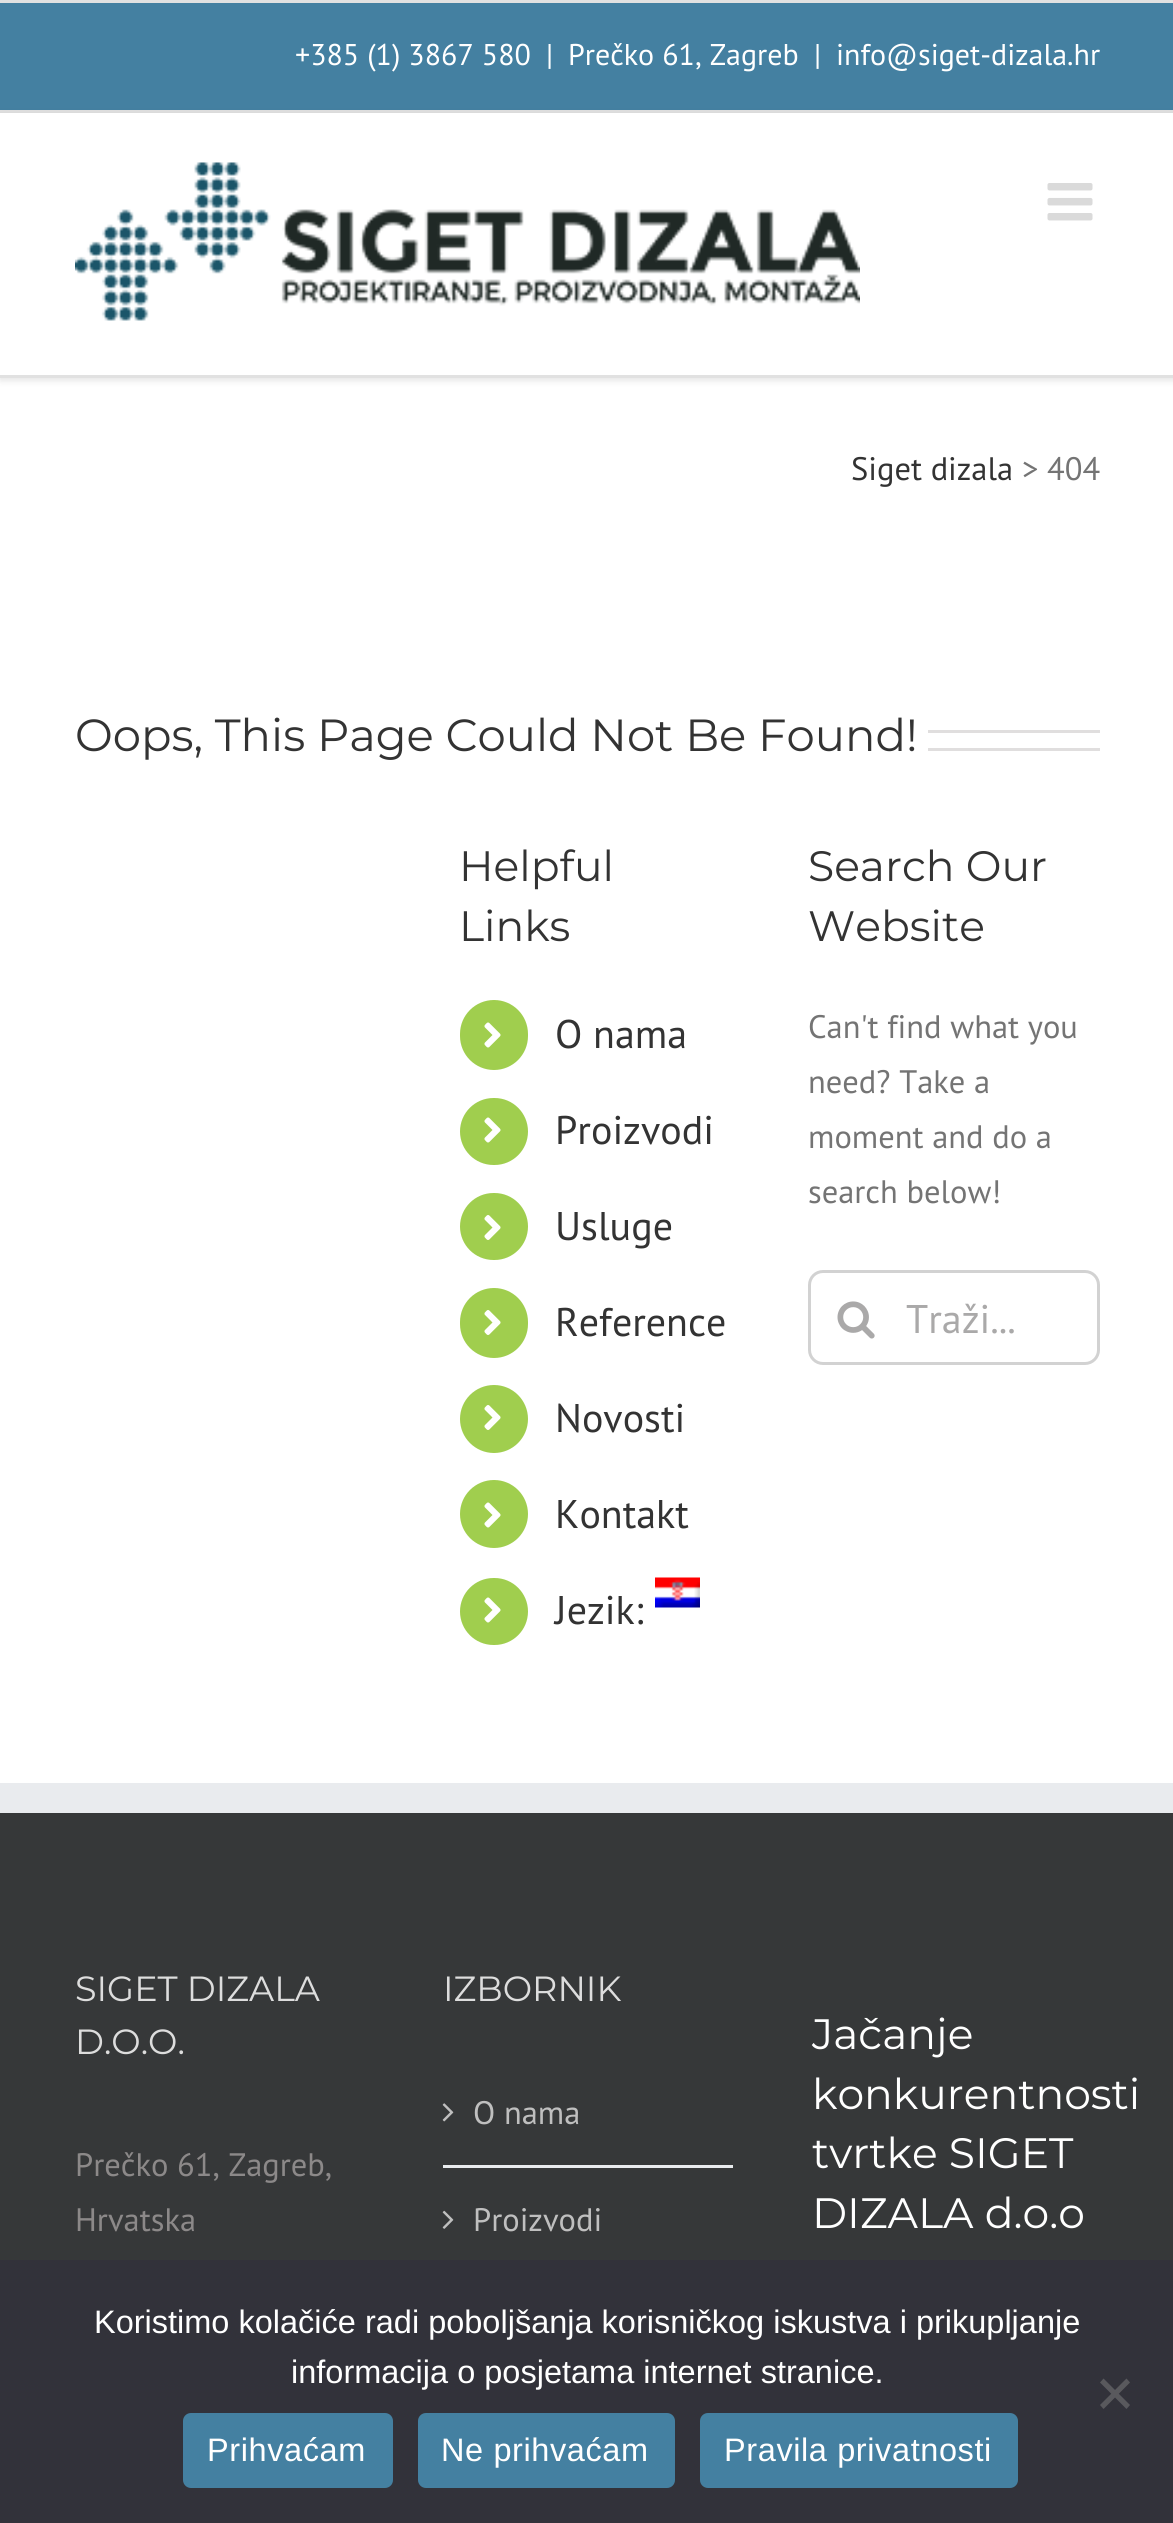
import math
import cairo


def write_spaced(ctx, x, y, s, letter, word):
	ctx.move_to(x, y)
	for ch in s:
		ctx.show_text(ch)
		ctx.rel_move_to(letter + word * (ch == ' '), 0)

def round_path(ctx, x, y, w, h, r):
	ctx.new_sub_path()
	for i, (u, v) in enumerate([(x + w - r, y + h - r), (x + r, y + h - r), (x + r, y + r), (x + w - r, y + r)]):
		ctx.arc(u, v, r, i * math.pi / 2, (i + 1) * math.pi / 2)
	ctx.close_path()

def blur_box(ctx, x, y, w, h, r, blur, alpha):
	ctx.push_group_with_content(cairo.CONTENT_ALPHA)
	ctx.set_operator(cairo.OPERATOR_SOURCE)
	for i in range(15, -16, -2):
		e = blur * i / 6
		if min(w, h) + 2 * e > 0:
			ctx.set_source_rgba(0, 0, 0, alpha * math.erfc((i - 1) / 8.5) / 2)
			round_path(ctx, x - e, y - e, w + 2 * e, h + 2 * e, max(0, min(r + e + blur * .6, min(w, h) / 2 + e)))
			ctx.fill()
	ctx.mask(ctx.pop_group())

def paste(ctx, path, x, y, w, h):
	ctx.save()
	ctx.set_source_surface(cairo.ImageSurface.create_from_png(path), x, y)
	ctx.rectangle(x, y, w, h)
	ctx.fill()
	ctx.restore()

def draw(ctx):
	ctx.set_source_rgb(1, 1, 1)
	ctx.paint()
	ctx.set_source_rgb(0.267, 0.502, 0.631)
	ctx.rectangle(0, 3, 1173, 107)
	ctx.fill()
	ctx.set_source_rgb(0.882, 0.882, 0.882)
	ctx.rectangle(0, 110, 1173, 3)
	ctx.rectangle(0, 0, 1173, 3)
	ctx.fill()
	ctx.select_font_face('PT Sans')
	ctx.set_font_size(30)
	ctx.set_source_rgb(1, 1, 1)
	for x, y, s in [
		(295, 65, '+385 (1) 3867 580'),
		(546, 65, '|'),
		(568, 65, 'Prečko 61, Zagreb'),
		(814, 65, '|'),
		(836, 65, 'info@siget-dizala.hr'),
	]:
		ctx.move_to(x, y)
		ctx.show_text(s)
	ctx.set_source_rgb(0, 0, 0)
	blur_box(ctx, 0, 115, 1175, 265, 0, 4, 0.12)
	ctx.set_source_rgb(1, 1, 1)
	ctx.rectangle(0, 113, 1173, 262)
	ctx.fill()
	ctx.set_source_rgb(0.882, 0.882, 0.882)
	ctx.rectangle(0, 375, 1173, 3)
	ctx.fill()
	paste(ctx, 'media/1.png', 75, 162, 785, 159)
	paste(ctx, 'media/2.png', 1047, 183, 46, 38)
	ctx.set_font_size(32.5)
	ctx.set_source_rgb(0.2, 0.2, 0.2)
	ctx.move_to(851, 480)
	ctx.show_text('Siget dizala')
	ctx.set_source_rgb(0.455, 0.455, 0.455)
	ctx.move_to(1022, 480)
	ctx.show_text('> 404')
	ctx.select_font_face('Montserrat Thin')
	ctx.set_font_size(45)
	ctx.set_source_rgb(0.2, 0.2, 0.2)
	ctx.move_to(75, 751)
	ctx.show_text('Oops, This Page Could Not Be Found!')
	ctx.set_source_rgb(0.878, 0.871, 0.871)
	ctx.rectangle(928, 730, 172, 3)
	ctx.fill()
	ctx.rectangle(928, 748, 172, 3)
	ctx.fill()
	ctx.set_font_size(42.5)
	ctx.set_source_rgb(0.2, 0.2, 0.2)
	ctx.move_to(459, 881)
	ctx.show_text('Helpful')
	ctx.move_to(459, 941)
	ctx.show_text('Links')
	ctx.set_source_rgb(0.627, 0.808, 0.306)
	round_path(ctx, 460, 1000, 68, 70, 34)
	ctx.fill()
	paste(ctx, 'media/3.png', 484, 1022, 17, 26)
	ctx.select_font_face('PT Sans')
	ctx.set_font_size(40)
	ctx.set_source_rgb(0.2, 0.2, 0.2)
	ctx.move_to(555, 1048)
	ctx.show_text('O nama')
	ctx.set_source_rgb(0.627, 0.808, 0.306)
	round_path(ctx, 460, 1098, 68, 67, 33.5)
	ctx.fill()
	paste(ctx, 'media/3.png', 484, 1117, 17, 26)
	ctx.set_source_rgb(0.2, 0.2, 0.2)
	ctx.move_to(555, 1144)
	ctx.show_text('Proizvodi')
	ctx.set_source_rgb(0.627, 0.808, 0.306)
	round_path(ctx, 460, 1193, 68, 67, 33.5)
	ctx.fill()
	paste(ctx, 'media/4.png', 484, 1215, 17, 25)
	ctx.set_source_rgb(0.2, 0.2, 0.2)
	ctx.move_to(555, 1240)
	ctx.show_text('Usluge')
	ctx.set_source_rgb(0.627, 0.808, 0.306)
	round_path(ctx, 460, 1288, 68, 70, 34)
	ctx.fill()
	paste(ctx, 'media/4.png', 484, 1310, 17, 25)
	ctx.set_source_rgb(0.2, 0.2, 0.2)
	ctx.move_to(555, 1336)
	ctx.show_text('Reference')
	ctx.set_source_rgb(0.627, 0.808, 0.306)
	ctx.new_path()
	ctx.arc(494, 1419, 34, 0, 2 * math.pi)
	ctx.fill()
	paste(ctx, 'media/4.png', 484, 1405, 17, 25)
	ctx.set_source_rgb(0.2, 0.2, 0.2)
	ctx.move_to(555, 1432)
	ctx.show_text('Novosti')
	ctx.set_source_rgb(0.627, 0.808, 0.306)
	ctx.new_path()
	ctx.arc(494, 1514, 34, 0, 2 * math.pi)
	ctx.fill()
	paste(ctx, 'media/3.png', 484, 1502, 17, 26)
	ctx.set_source_rgb(0.2, 0.2, 0.2)
	ctx.move_to(555, 1528)
	ctx.show_text('Kontakt')
	ctx.set_source_rgb(0.627, 0.808, 0.306)
	round_path(ctx, 460, 1578, 68, 67, 33.5)
	ctx.fill()
	paste(ctx, 'media/3.png', 484, 1597, 17, 26)
	ctx.set_source_rgb(0.2, 0.2, 0.2)
	ctx.move_to(555, 1624)
	ctx.show_text('Jezik:')
	paste(ctx, 'media/5.png', 655, 1577, 45, 31)
	ctx.select_font_face('Montserrat Thin')
	ctx.set_font_size(42.5)
	ctx.move_to(808, 881)
	ctx.show_text('Search Our')
	ctx.move_to(808, 941)
	ctx.show_text('Website')
	ctx.select_font_face('PT Sans')
	ctx.set_font_size(32.5)
	ctx.set_source_rgb(0.455, 0.455, 0.455)
	for x, y, s in [
		(808, 1038, 'Can\'t find what you'),
		(808, 1093, 'need? Take a'),
		(808, 1148, 'moment and do a'),
		(808, 1203, 'search below!'),
	]:
		ctx.move_to(x, y)
		ctx.show_text(s)
	round_path(ctx, 809.5, 1271.5, 289, 92, 13.5)
	ctx.set_source_rgb(0.824, 0.824, 0.824)
	ctx.set_line_width(3)
	ctx.stroke()
	paste(ctx, 'media/6.png', 837, 1301, 38, 38)
	ctx.set_font_size(40)
	ctx.set_source_rgb(0.667, 0.663, 0.663)
	ctx.move_to(906, 1333)
	ctx.show_text('Traži...')
	ctx.set_source_rgb(0.212, 0.22, 0.224)
	ctx.rectangle(0, 1813, 1173, 447)
	ctx.fill()
	ctx.set_source_rgb(0.914, 0.918, 0.933)
	ctx.rectangle(0, 1783, 1173, 30)
	ctx.fill()
	ctx.select_font_face('Montserrat Thin')
	ctx.set_font_size(35)
	ctx.set_source_rgb(0.867, 0.867, 0.867)
	ctx.move_to(75, 2001)
	ctx.show_text('SIGET DIZALA')
	ctx.move_to(75, 2054)
	ctx.show_text('D.O.O.')
	ctx.select_font_face('PT Sans')
	ctx.set_font_size(32.5)
	ctx.set_source_rgb(0.549, 0.537, 0.537)
	ctx.move_to(75, 2176)
	ctx.show_text('Prečko 61, Zagreb,')
	ctx.move_to(75, 2231)
	ctx.show_text('Hrvatska')
	ctx.select_font_face('Montserrat Thin')
	ctx.set_font_size(35)
	ctx.set_source_rgb(0.867, 0.867, 0.867)
	ctx.move_to(443, 2001)
	ctx.show_text('IZBORNIK')
	ctx.set_source_rgb(0.914, 0.918, 0.933)
	ctx.rectangle(443, 2165, 290, 3)
	ctx.fill()
	paste(ctx, 'media/7.png', 442, 2103, 12, 19)
	ctx.select_font_face('PT Sans')
	ctx.set_font_size(32.5)
	ctx.set_source_rgb(0.749, 0.749, 0.749)
	ctx.move_to(473, 2124)
	ctx.show_text('O nama')
	paste(ctx, 'media/8.png', 442, 2210, 12, 19)
	ctx.move_to(473, 2231)
	ctx.show_text('Proizvodi')
	ctx.select_font_face('Montserrat Thin')
	ctx.set_font_size(42.5)
	ctx.set_source_rgb(1, 1, 1)
	for x, y, s in [
		(812, 2049, 'Jačanje'),
		(812, 2109, 'konkurentnosti'),
		(812, 2168, 'tvrtke SIGET'),
		(812, 2228, 'DIZALA d.o.o'),
	]:
		ctx.move_to(x, y)
		ctx.show_text(s)
	ctx.set_source_rgb(0.196, 0.196, 0.227)
	ctx.rectangle(0, 2260, 1173, 263)
	ctx.fill()
	ctx.select_font_face('Liberation Sans')
	ctx.set_font_size(32.5)
	ctx.set_source_rgb(1, 1, 1)
	ctx.move_to(94, 2333)
	ctx.show_text('Koristimo kolačiće radi poboljšanja korisničkog iskustva i prikupljanje')
	ctx.move_to(291, 2383)
	ctx.show_text('informacija o posjetama internet stranice.')
	ctx.set_source_rgb(0.349, 0.349, 0.365)
	ctx.new_path()
	ctx.move_to(1126.5, 2378.5)
	ctx.line_to(1130, 2382.5)
	ctx.line_to(1103.5, 2409)
	ctx.line_to(1100, 2405)
	ctx.close_path()
	ctx.fill()
	ctx.new_path()
	ctx.move_to(1100, 2382.5)
	ctx.line_to(1103.5, 2378.5)
	ctx.line_to(1130, 2405)
	ctx.line_to(1126.5, 2409)
	ctx.close_path()
	ctx.fill()
	ctx.set_source_rgb(0.267, 0.502, 0.631)
	round_path(ctx, 183, 2413, 210, 75, 8)
	ctx.fill()
	ctx.set_source_rgb(1, 1, 1)
	write_spaced(ctx, 207, 2461, 'Prihvaćam', 0.6, 0)
	ctx.set_source_rgb(0.267, 0.502, 0.631)
	round_path(ctx, 418, 2413, 257, 75, 8)
	ctx.fill()
	ctx.set_source_rgb(1, 1, 1)
	write_spaced(ctx, 441, 2461, 'Ne prihvaćam', 0.6, 0)
	ctx.set_source_rgb(0.267, 0.502, 0.631)
	round_path(ctx, 700, 2413, 318, 75, 8)
	ctx.fill()
	ctx.set_source_rgb(1, 1, 1)
	write_spaced(ctx, 724, 2461, 'Pravila privatnosti', 0.6, 0)


surface = cairo.ImageSurface(cairo.FORMAT_RGB24, 1173, 2523)
ctx = cairo.Context(surface)
options = cairo.FontOptions()
options.set_hint_metrics(cairo.HINT_METRICS_OFF)
options.set_hint_style(cairo.HINT_STYLE_NONE)
ctx.set_font_options(options)
ctx.set_miter_limit(4)
draw(ctx)
surface.write_to_png('image.png')
